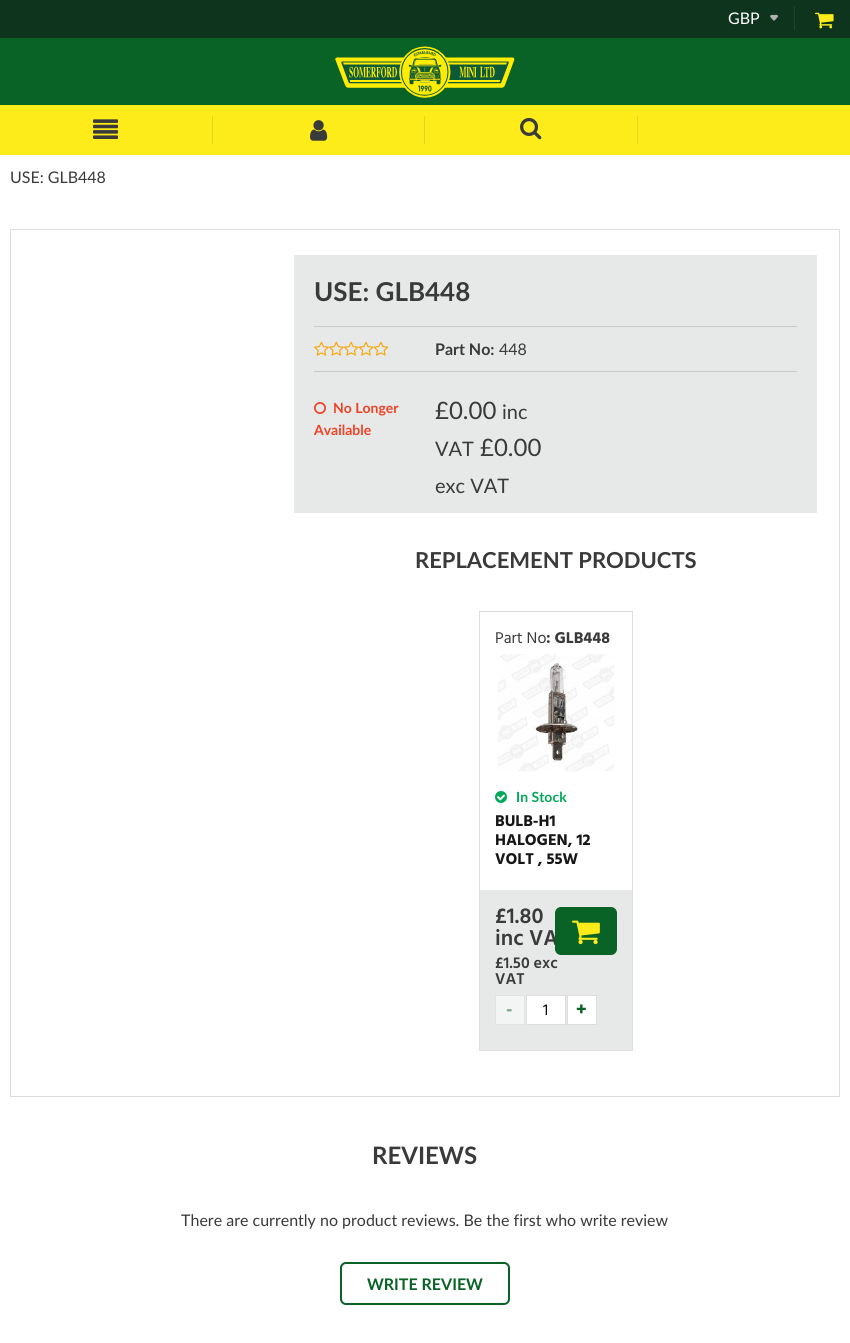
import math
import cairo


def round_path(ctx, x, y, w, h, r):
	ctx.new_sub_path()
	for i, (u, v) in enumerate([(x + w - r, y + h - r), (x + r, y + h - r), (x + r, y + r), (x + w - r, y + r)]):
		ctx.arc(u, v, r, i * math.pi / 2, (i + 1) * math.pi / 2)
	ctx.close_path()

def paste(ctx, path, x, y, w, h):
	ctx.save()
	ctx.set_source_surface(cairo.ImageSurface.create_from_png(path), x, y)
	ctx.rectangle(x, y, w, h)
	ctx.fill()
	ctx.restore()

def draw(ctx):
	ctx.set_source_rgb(1, 1, 1)
	ctx.paint()
	ctx.set_source_rgb(0.055, 0.204, 0.114)
	ctx.rectangle(0, 0, 850, 38)
	ctx.fill()
	ctx.set_source_rgb(0.075, 0.294, 0.161)
	ctx.rectangle(794, 6, 1, 24)
	ctx.fill()
	ctx.select_font_face('Lato')
	ctx.set_font_size(16)
	ctx.set_source_rgb(1, 1, 1)
	ctx.move_to(728, 24)
	ctx.show_text('GBP')
	paste(ctx, 'media/1.png', 770, 14, 8, 7)
	paste(ctx, 'media/2.png', 815, 12, 19, 17)
	ctx.set_source_rgb(0.039, 0.388, 0.149)
	ctx.rectangle(0, 38, 850, 67)
	ctx.fill()
	paste(ctx, 'media/3.png', 335, 46, 180, 52)
	ctx.set_source_rgb(0.996, 0.922, 0.102)
	ctx.rectangle(0, 105, 850, 50)
	ctx.fill()
	ctx.set_source_rgb(0.894, 0.831, 0.118)
	ctx.rectangle(212, 116, 1, 28)
	ctx.fill()
	paste(ctx, 'media/4.png', 93, 119, 25, 20)
	ctx.rectangle(424, 116, 1, 28)
	ctx.fill()
	paste(ctx, 'media/5.png', 310, 120, 18, 21)
	ctx.rectangle(637, 116, 1, 28)
	ctx.fill()
	paste(ctx, 'media/6.png', 520, 117, 22, 23)
	ctx.set_source_rgb(0.227, 0.227, 0.227)
	ctx.move_to(10, 183)
	ctx.show_text('USE: GLB448')
	ctx.rectangle(10.5, 229.5, 829, 867)
	ctx.set_source_rgb(0.863, 0.871, 0.867)
	ctx.set_line_width(1)
	ctx.stroke()
	ctx.set_source_rgb(0.906, 0.91, 0.91)
	ctx.rectangle(294, 255, 523, 258)
	ctx.fill()
	ctx.select_font_face('Lato', cairo.FONT_SLANT_NORMAL, cairo.FONT_WEIGHT_BOLD)
	ctx.set_font_size(26)
	ctx.set_source_rgb(0.227, 0.227, 0.227)
	ctx.move_to(314, 301)
	ctx.show_text('USE: GLB448')
	ctx.set_source_rgb(0.788, 0.788, 0.788)
	ctx.rectangle(314, 326, 483, 1)
	ctx.fill()
	ctx.rectangle(314, 371, 483, 1)
	ctx.fill()
	paste(ctx, 'media/7.png', 314, 341, 75, 15)
	ctx.set_font_size(16)
	ctx.set_source_rgb(0.227, 0.227, 0.227)
	ctx.move_to(435, 355)
	ctx.show_text('Part No:')
	ctx.select_font_face('Lato')
	ctx.move_to(499, 355)
	ctx.show_text('448')
	paste(ctx, 'media/8.png', 314, 402, 12, 12)
	ctx.select_font_face('Lato', cairo.FONT_SLANT_NORMAL, cairo.FONT_WEIGHT_BOLD)
	ctx.set_font_size(14)
	ctx.set_source_rgb(0.933, 0.259, 0.145)
	ctx.move_to(333, 413)
	ctx.show_text('No Longer')
	ctx.move_to(314, 435)
	ctx.show_text('Available')
	ctx.select_font_face('Lato')
	ctx.set_font_size(24)
	ctx.set_source_rgb(0.227, 0.227, 0.227)
	ctx.move_to(435, 419)
	ctx.show_text('£0.00')
	ctx.set_font_size(20)
	ctx.move_to(502, 419)
	ctx.show_text('inc')
	ctx.move_to(435, 456)
	ctx.show_text('VAT')
	ctx.set_font_size(24)
	ctx.move_to(480, 456)
	ctx.show_text('£0.00')
	ctx.set_font_size(20)
	ctx.move_to(435, 493)
	ctx.show_text('exc VAT')
	ctx.select_font_face('Lato', cairo.FONT_SLANT_NORMAL, cairo.FONT_WEIGHT_BOLD)
	ctx.set_font_size(22)
	ctx.move_to(415, 568)
	ctx.show_text('REPLACEMENT PRODUCTS')
	ctx.rectangle(479.5, 611.5, 153, 439)
	ctx.set_source_rgb(0.867, 0.867, 0.867)
	ctx.stroke()
	ctx.select_font_face('Hind')
	ctx.set_font_size(16)
	ctx.set_source_rgb(0.227, 0.227, 0.227)
	ctx.move_to(495, 643)
	ctx.show_text('Part No')
	ctx.select_font_face('Hind', cairo.FONT_SLANT_NORMAL, cairo.FONT_WEIGHT_BOLD)
	ctx.move_to(546, 643)
	ctx.show_text(': GLB448')
	paste(ctx, 'media/9.png', 497, 654, 118, 118)
	paste(ctx, 'media/10.png', 495, 791, 12, 12)
	ctx.select_font_face('Lato', cairo.FONT_SLANT_NORMAL, cairo.FONT_WEIGHT_BOLD)
	ctx.set_font_size(14)
	ctx.set_source_rgb(0, 0.659, 0.345)
	ctx.move_to(516, 802)
	ctx.show_text('In Stock')
	ctx.select_font_face('Hind', cairo.FONT_SLANT_NORMAL, cairo.FONT_WEIGHT_BOLD)
	ctx.set_font_size(16)
	ctx.set_source_rgb(0.086, 0.086, 0.086)
	for x, y, s in [
		(495, 826, 'BULB-H1'),
		(495, 845, 'HALOGEN, 12'),
		(495, 864, 'VOLT , 55W'),
	]:
		ctx.move_to(x, y)
		ctx.show_text(s)
	ctx.set_source_rgb(0.906, 0.91, 0.91)
	ctx.rectangle(480, 890, 152, 160)
	ctx.fill()
	ctx.select_font_face('Hind SemiBold')
	ctx.set_font_size(22)
	ctx.set_source_rgb(0.227, 0.227, 0.227)
	ctx.move_to(495, 945)
	ctx.show_text('inc VA')
	ctx.set_source_rgb(0.039, 0.388, 0.149)
	round_path(ctx, 556, 908, 60, 46, 5)
	ctx.fill_preserve()
	ctx.set_line_width(2)
	ctx.stroke()
	paste(ctx, 'media/11.png', 572, 920, 28, 25)
	ctx.set_source_rgb(0.227, 0.227, 0.227)
	ctx.move_to(495, 923)
	ctx.show_text('£1.80')
	ctx.set_font_size(16)
	ctx.move_to(495, 968)
	ctx.show_text('£1.50 exc')
	ctx.move_to(495, 984)
	ctx.show_text('VAT')
	ctx.set_source_rgb(0.953, 0.957, 0.957)
	ctx.rectangle(495.5, 995.5, 29, 29)
	ctx.fill_preserve()
	ctx.set_source_rgb(0.886, 0.89, 0.89)
	ctx.set_line_width(1)
	ctx.stroke()
	ctx.select_font_face('Hind', cairo.FONT_SLANT_NORMAL, cairo.FONT_WEIGHT_BOLD)
	ctx.set_font_size(18)
	ctx.set_source_rgb(0.475, 0.651, 0.529)
	ctx.move_to(506, 1015)
	ctx.show_text('-')
	ctx.set_source_rgb(1, 1, 1)
	ctx.rectangle(526.5, 995.5, 39, 29)
	ctx.fill_preserve()
	ctx.set_source_rgb(0.867, 0.867, 0.867)
	ctx.stroke()
	ctx.select_font_face('Hind')
	ctx.set_font_size(16)
	ctx.set_source_rgb(0, 0, 0)
	ctx.move_to(543, 1015)
	ctx.show_text('1')
	ctx.set_source_rgb(1, 1, 1)
	ctx.rectangle(567.5, 995.5, 29, 29)
	ctx.fill_preserve()
	ctx.set_source_rgb(0.867, 0.867, 0.867)
	ctx.stroke()
	ctx.select_font_face('Hind', cairo.FONT_SLANT_NORMAL, cairo.FONT_WEIGHT_BOLD)
	ctx.set_font_size(18)
	ctx.set_source_rgb(0.039, 0.388, 0.149)
	ctx.move_to(576, 1015)
	ctx.show_text('+')
	ctx.select_font_face('Lato', cairo.FONT_SLANT_NORMAL, cairo.FONT_WEIGHT_BOLD)
	ctx.set_font_size(24)
	ctx.set_source_rgb(0.227, 0.227, 0.227)
	ctx.move_to(372, 1164)
	ctx.show_text('REVIEWS')
	ctx.select_font_face('Lato')
	ctx.set_font_size(16)
	ctx.move_to(181, 1226)
	ctx.show_text('There are currently no product reviews. Be the first who write review')
	round_path(ctx, 341, 1263, 168, 41, 5)
	ctx.set_source_rgb(0.039, 0.388, 0.149)
	ctx.set_line_width(2)
	ctx.stroke()
	ctx.select_font_face('Lato', cairo.FONT_SLANT_NORMAL, cairo.FONT_WEIGHT_BOLD)
	ctx.move_to(367, 1290)
	ctx.show_text('WRITE REVIEW')


surface = cairo.ImageSurface(cairo.FORMAT_RGB24, 850, 1343)
ctx = cairo.Context(surface)
options = cairo.FontOptions()
options.set_hint_metrics(cairo.HINT_METRICS_OFF)
options.set_hint_style(cairo.HINT_STYLE_NONE)
ctx.set_font_options(options)
ctx.set_miter_limit(4)
draw(ctx)
surface.write_to_png('image.png')
